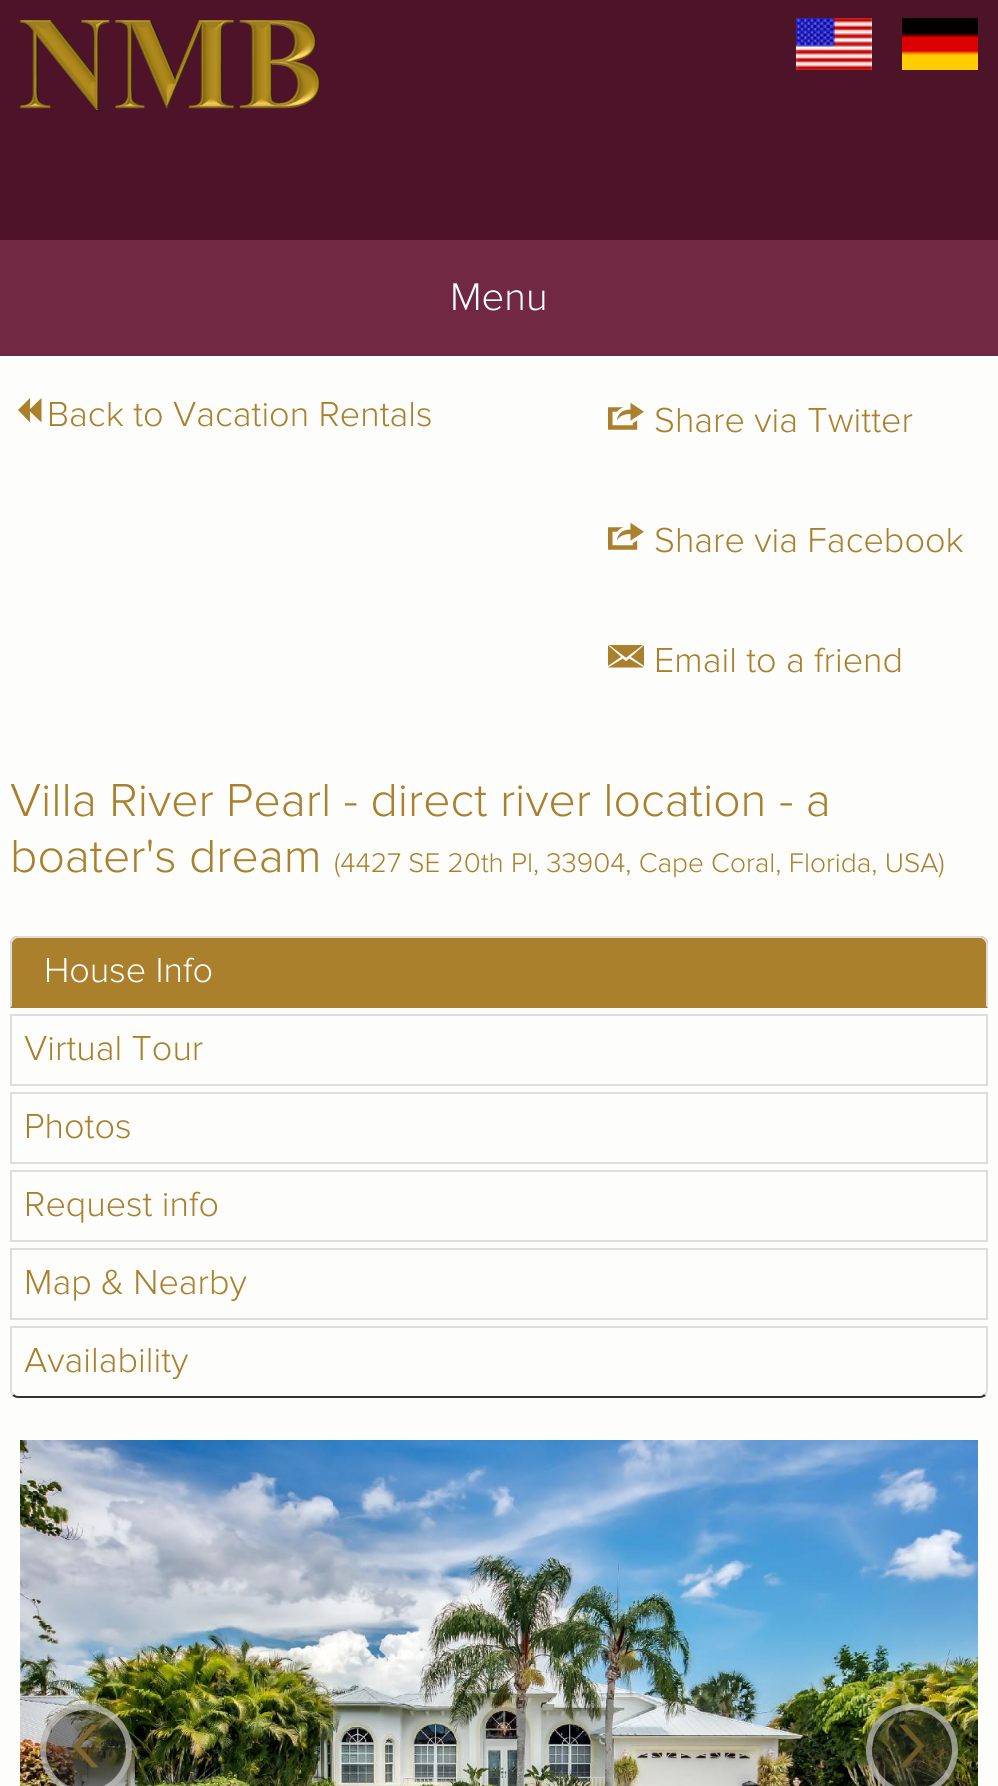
import math
import cairo


def paste(ctx, path, x, y, w, h):
	ctx.save()
	ctx.set_source_surface(cairo.ImageSurface.create_from_png(path), x, y)
	ctx.rectangle(x, y, w, h)
	ctx.fill()
	ctx.restore()

def draw(ctx):
	ctx.set_source_rgb(0.302, 0.075, 0.157)
	ctx.paint()
	paste(ctx, 'media/1.png', 20, 20, 300, 90)
	paste(ctx, 'media/2.png', 796, 18, 76, 52)
	paste(ctx, 'media/3.png', 902, 18, 76, 52)
	ctx.set_source_rgb(0.443, 0.161, 0.263)
	ctx.rectangle(0, 240, 998, 116)
	ctx.fill()
	ctx.select_font_face('Proxima Nova Light')
	ctx.set_font_size(40)
	ctx.set_source_rgb(1, 1, 1)
	ctx.move_to(450, 310)
	ctx.show_text('Menu')
	ctx.set_source_rgb(0.992, 0.992, 0.988)
	ctx.rectangle(0, 356, 998, 1430)
	ctx.fill()
	ctx.set_source_rgb(0.667, 0.502, 0.173)
	ctx.new_path()
	ctx.move_to(30, 398)
	ctx.line_to(18, 410)
	ctx.line_to(30, 422.5)
	ctx.line_to(30, 411.5)
	ctx.line_to(41.5, 422.5)
	ctx.line_to(41.5, 398)
	ctx.line_to(30, 409)
	ctx.close_path()
	ctx.fill()
	ctx.set_font_size(36)
	ctx.move_to(47, 426)
	ctx.show_text('Back to Vacation Rentals')
	paste(ctx, 'media/4.png', 608, 402, 36, 28)
	ctx.move_to(654, 432)
	ctx.show_text('Share via Twitter')
	paste(ctx, 'media/4.png', 608, 522, 36, 28)
	ctx.move_to(654, 552)
	ctx.show_text('Share via Facebook')
	paste(ctx, 'media/5.png', 608, 645, 36, 23)
	ctx.move_to(654, 672)
	ctx.show_text('Email to a friend')
	ctx.set_font_size(48)
	ctx.move_to(10, 816)
	ctx.show_text('Villa River Pearl - direct river location - a')
	ctx.move_to(10, 872)
	ctx.show_text('boater\'s dream')
	ctx.set_font_size(28)
	ctx.move_to(334, 872)
	ctx.show_text('(4427 SE 20th Pl, 33904, Cape Coral, Florida, USA)')
	ctx.new_path()
	ctx.move_to(18, 936)
	ctx.line_to(980, 936)
	ctx.curve_to(984.5, 936, 988, 939.5, 988, 944)
	ctx.line_to(988, 1008)
	ctx.line_to(10, 1008)
	ctx.line_to(10, 944)
	ctx.curve_to(10, 939.5, 13.5, 936, 18, 936)
	ctx.close_path()
	ctx.fill()
	ctx.set_source_rgb(0.867, 0.867, 0.867)
	ctx.new_path()
	ctx.move_to(18, 936)
	ctx.curve_to(16, 936, 14, 937, 12, 938)
	ctx.line_to(14, 940)
	ctx.curve_to(15, 939, 16, 938, 18, 938)
	ctx.line_to(980, 938)
	ctx.curve_to(982, 938, 983, 939, 984, 940)
	ctx.line_to(986, 938)
	ctx.curve_to(984, 937, 982, 936, 980, 936)
	ctx.close_path()
	ctx.fill()
	ctx.new_path()
	ctx.move_to(988, 1008)
	ctx.line_to(988, 944)
	ctx.curve_to(988, 942, 987, 940, 986, 938)
	ctx.line_to(984, 940)
	ctx.curve_to(985, 941, 986, 942, 986, 944)
	ctx.line_to(986, 1006)
	ctx.close_path()
	ctx.fill()
	ctx.new_path()
	ctx.move_to(10, 1008)
	ctx.line_to(12, 1006)
	ctx.line_to(12, 944)
	ctx.curve_to(12, 942, 13, 941, 14, 940)
	ctx.line_to(12, 938)
	ctx.curve_to(11, 940, 10, 942, 10, 944)
	ctx.close_path()
	ctx.fill()
	ctx.set_font_size(36)
	ctx.set_source_rgb(1, 1, 1)
	ctx.move_to(44, 982)
	ctx.show_text('House Info')
	ctx.rectangle(11, 1015, 976, 70)
	ctx.set_source_rgb(0.867, 0.867, 0.867)
	ctx.stroke()
	ctx.set_source_rgb(0.667, 0.502, 0.173)
	ctx.move_to(24, 1060)
	ctx.show_text('Virtual Tour')
	ctx.rectangle(11, 1093, 976, 70)
	ctx.set_source_rgb(0.867, 0.867, 0.867)
	ctx.stroke()
	ctx.set_source_rgb(0.667, 0.502, 0.173)
	ctx.move_to(24, 1138)
	ctx.show_text('Photos')
	ctx.rectangle(11, 1171, 976, 70)
	ctx.set_source_rgb(0.867, 0.867, 0.867)
	ctx.stroke()
	ctx.set_source_rgb(0.667, 0.502, 0.173)
	ctx.move_to(24, 1216)
	ctx.show_text('Request info')
	ctx.rectangle(11, 1249, 976, 70)
	ctx.set_source_rgb(0.867, 0.867, 0.867)
	ctx.stroke()
	ctx.set_source_rgb(0.667, 0.502, 0.173)
	ctx.move_to(24, 1294)
	ctx.show_text('Map & Nearby')
	ctx.set_source_rgb(0.867, 0.867, 0.867)
	ctx.new_path()
	ctx.move_to(10, 1326)
	ctx.line_to(12, 1328)
	ctx.line_to(986, 1328)
	ctx.line_to(988, 1326)
	ctx.close_path()
	ctx.fill()
	ctx.new_path()
	ctx.move_to(988, 1326)
	ctx.line_to(986, 1328)
	ctx.line_to(986, 1390)
	ctx.curve_to(986, 1392, 985, 1393, 984, 1394)
	ctx.line_to(986, 1396)
	ctx.curve_to(987, 1394, 988, 1392, 988, 1390)
	ctx.close_path()
	ctx.fill()
	ctx.set_source_rgb(0.2, 0.2, 0.2)
	ctx.new_path()
	ctx.move_to(18, 1398)
	ctx.line_to(980, 1398)
	ctx.curve_to(982, 1398, 984, 1397, 986, 1396)
	ctx.line_to(984, 1394)
	ctx.curve_to(983, 1395, 982, 1396, 980, 1396)
	ctx.line_to(18, 1396)
	ctx.curve_to(16, 1396, 15, 1395, 14, 1394)
	ctx.line_to(12, 1396)
	ctx.curve_to(14, 1397, 16, 1398, 18, 1398)
	ctx.close_path()
	ctx.fill()
	ctx.set_source_rgb(0.867, 0.867, 0.867)
	ctx.new_path()
	ctx.move_to(12, 1328)
	ctx.line_to(10, 1326)
	ctx.line_to(10, 1390)
	ctx.curve_to(10, 1392, 11, 1394, 12, 1396)
	ctx.line_to(14, 1394)
	ctx.curve_to(13, 1393, 12, 1392, 12, 1390)
	ctx.close_path()
	ctx.fill()
	ctx.set_source_rgb(0.667, 0.502, 0.173)
	ctx.move_to(24, 1372)
	ctx.show_text('Availability')
	paste(ctx, 'media/6.png', 20, 1440, 958, 346)
	ctx.set_source_rgba(0.133, 0.133, 0.133, 0.5)
	ctx.arc(86, 1750, 46, 0, 2 * math.pi)
	ctx.fill()
	ctx.arc(86, 1750, 43, 0, 2 * math.pi)
	ctx.set_source_rgba(1, 1, 1, 0.5)
	ctx.set_line_width(6)
	ctx.stroke()
	ctx.set_font_size(120)
	ctx.set_source_rgb(0.494, 0.4, 0.192)
	ctx.move_to(69, 1775)
	ctx.show_text('‹')
	ctx.set_source_rgba(0.133, 0.133, 0.133, 0.5)
	ctx.new_path()
	ctx.arc(912, 1750, 46, 0, 2 * math.pi)
	ctx.fill()
	ctx.arc(912, 1750, 43, 0, 2 * math.pi)
	ctx.set_source_rgba(1, 1, 1, 0.5)
	ctx.stroke()
	ctx.set_source_rgb(0.427, 0.349, 0.141)
	ctx.move_to(895, 1775)
	ctx.show_text('›')


surface = cairo.ImageSurface(cairo.FORMAT_RGB24, 998, 1786)
ctx = cairo.Context(surface)
options = cairo.FontOptions()
options.set_hint_metrics(cairo.HINT_METRICS_OFF)
options.set_hint_style(cairo.HINT_STYLE_NONE)
ctx.set_font_options(options)
ctx.set_miter_limit(4)
draw(ctx)
surface.write_to_png('image.png')
